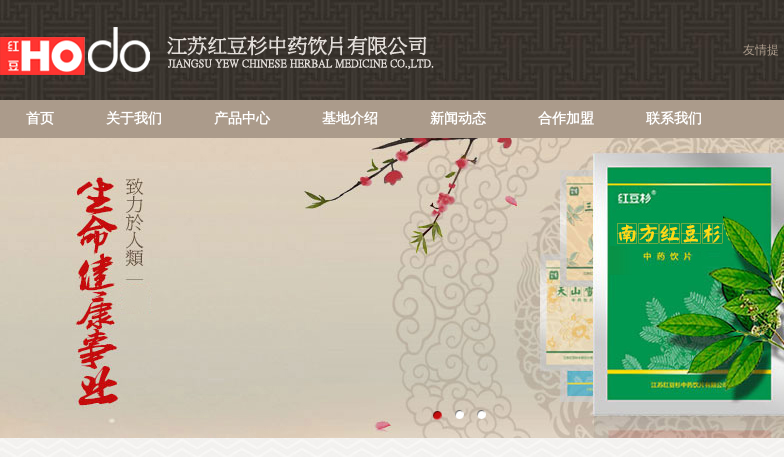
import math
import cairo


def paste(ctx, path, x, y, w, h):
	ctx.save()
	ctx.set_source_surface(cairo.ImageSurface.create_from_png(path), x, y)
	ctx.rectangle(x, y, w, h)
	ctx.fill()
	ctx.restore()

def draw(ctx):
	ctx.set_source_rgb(1, 1, 1)
	ctx.paint()
	paste(ctx, 'media/1.png', 0, 0, 784, 100)
	paste(ctx, 'media/2.png', 0, 27, 434, 48)
	ctx.select_font_face('WenQuanYi Zen Hei Medium')
	ctx.set_font_size(12)
	ctx.set_source_rgb(0.671, 0.608, 0.545)
	ctx.move_to(743, 54)
	ctx.show_text('友情提')
	ctx.rectangle(0, 100, 784, 38)
	ctx.fill()
	ctx.select_font_face('WenQuanYi Zen Hei', cairo.FONT_SLANT_NORMAL, cairo.FONT_WEIGHT_BOLD)
	ctx.set_font_size(14)
	ctx.set_source_rgb(1, 1, 1)
	for x, y, s in [
		(26, 123, '首页'),
		(106, 123, '关于我们'),
		(214, 123, '产品中心'),
		(322, 123, '基地介绍'),
		(430, 123, '新闻动态'),
		(538, 123, '合作加盟'),
		(646, 123, '联系我们'),
	]:
		ctx.move_to(x, y)
		ctx.show_text(s)
	paste(ctx, 'media/3.png', 0, 138, 784, 300)
	paste(ctx, 'media/4.png', 433, 411, 9, 9)
	paste(ctx, 'media/5.png', 455, 410, 9, 9)
	paste(ctx, 'media/6.png', 477, 410, 9, 9)
	paste(ctx, 'media/7.png', 0, 438, 784, 19)


surface = cairo.ImageSurface(cairo.FORMAT_RGB24, 784, 457)
ctx = cairo.Context(surface)
options = cairo.FontOptions()
options.set_hint_metrics(cairo.HINT_METRICS_OFF)
options.set_hint_style(cairo.HINT_STYLE_NONE)
ctx.set_font_options(options)
ctx.set_miter_limit(4)
draw(ctx)
surface.write_to_png('image.png')
